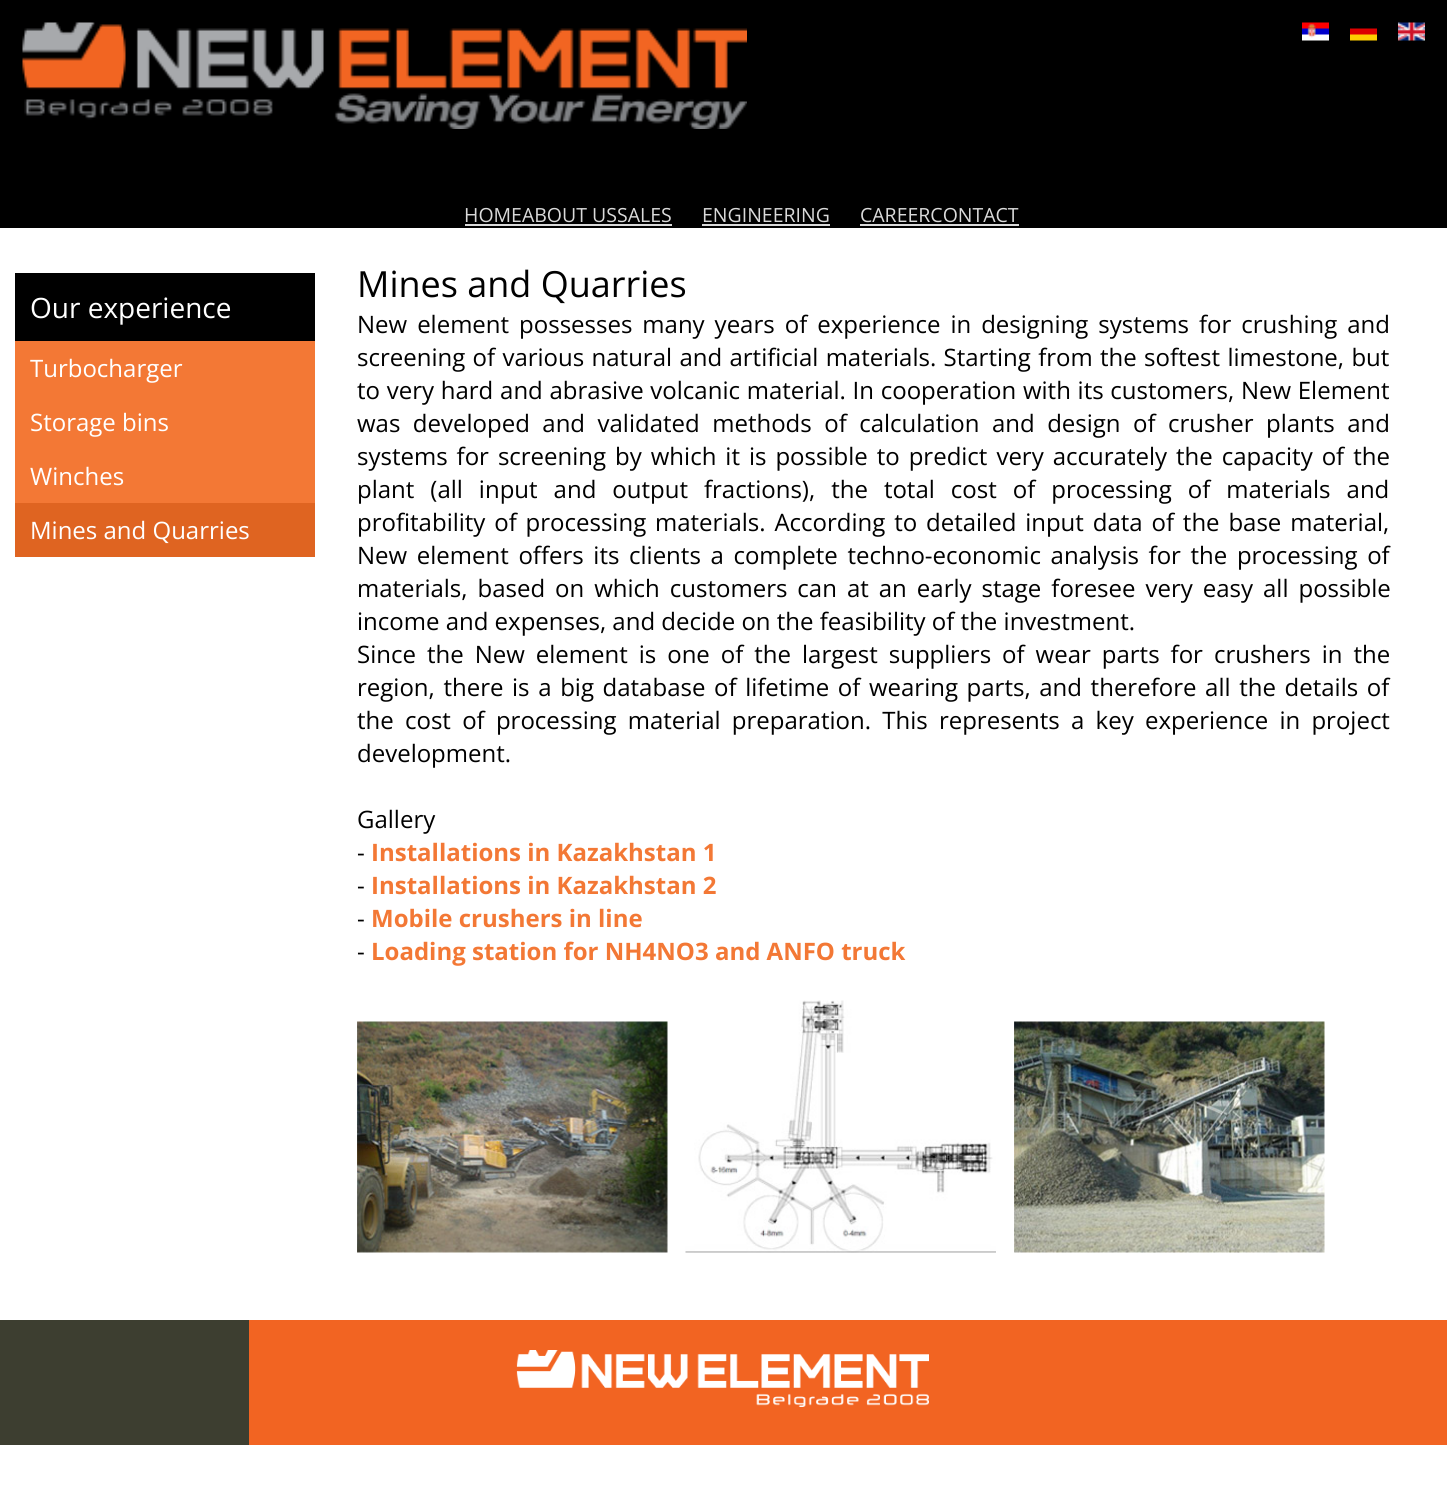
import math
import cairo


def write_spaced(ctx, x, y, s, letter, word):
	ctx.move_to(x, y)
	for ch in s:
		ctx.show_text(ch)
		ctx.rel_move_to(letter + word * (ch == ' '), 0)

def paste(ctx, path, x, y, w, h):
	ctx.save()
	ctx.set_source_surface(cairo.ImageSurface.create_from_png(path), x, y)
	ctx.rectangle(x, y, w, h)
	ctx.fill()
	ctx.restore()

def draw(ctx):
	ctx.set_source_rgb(1, 1, 1)
	ctx.paint()
	ctx.set_source_rgb(0, 0, 0)
	ctx.rectangle(0, 0, 1447, 228)
	ctx.fill()
	paste(ctx, 'media/1.png', 22, 22, 725, 107)
	paste(ctx, 'media/2.png', 1302, 22, 27, 19)
	paste(ctx, 'media/3.png', 1350, 28, 27, 13)
	paste(ctx, 'media/4.png', 1398, 22, 27, 19)
	ctx.select_font_face('Open Sans')
	ctx.set_font_size(19.5)
	ctx.set_source_rgb(0.855, 0.855, 0.855)
	ctx.move_to(464, 222)
	ctx.show_text('HOMEABOUT USSALES')
	ctx.rectangle(465, 224, 207, 2)
	ctx.fill()
	ctx.move_to(702, 222)
	ctx.show_text('ENGINEERING')
	ctx.rectangle(702, 224, 128, 2)
	ctx.fill()
	ctx.move_to(860, 222)
	ctx.show_text('CAREERCONTACT')
	ctx.rectangle(860, 224, 159, 2)
	ctx.fill()
	ctx.set_source_rgb(0, 0, 0)
	ctx.rectangle(15, 273, 300, 68)
	ctx.fill()
	ctx.set_font_size(28)
	ctx.set_source_rgb(1, 1, 1)
	ctx.move_to(30, 318)
	ctx.show_text('Our experience')
	ctx.set_source_rgb(0.953, 0.471, 0.208)
	ctx.rectangle(15, 341, 300, 162)
	ctx.fill()
	ctx.set_font_size(24)
	ctx.set_source_rgb(1, 1, 1)
	for x, y, s in [
		(30, 377, 'Turbocharger'),
		(30, 431, 'Storage bins'),
		(30, 485, 'Winches'),
	]:
		ctx.move_to(x, y)
		ctx.show_text(s)
	ctx.set_source_rgb(0.875, 0.392, 0.129)
	ctx.rectangle(15, 503, 300, 54)
	ctx.fill()
	ctx.set_source_rgb(1, 1, 1)
	ctx.move_to(30, 539)
	ctx.show_text('Mines and Quarries')
	ctx.set_font_size(36)
	ctx.set_source_rgb(0, 0, 0)
	ctx.move_to(357, 297)
	ctx.show_text('Mines and Quarries')
	ctx.set_font_size(24)
	write_spaced(ctx, 357, 333, 'New element possesses many years of experience in designing systems for crushing and', 0, 3.75)
	write_spaced(ctx, 357, 366, 'screening of various natural and artificial materials. Starting from the softest limestone, but', 0, 1.1)
	write_spaced(ctx, 357, 399, 'to very hard and abrasive volcanic material. In cooperation with its customers, New Element', 0, 0.5)
	write_spaced(ctx, 357, 432, 'was developed and validated methods of calculation and design of crusher plants and', 0, 6.25)
	write_spaced(ctx, 357, 465, 'systems for screening by which it is possible to predict very accurately the capacity of the', 0, 2.75)
	write_spaced(ctx, 357, 498, 'plant (all input and output fractions), the total cost of processing of materials and', 0, 9.75)
	write_spaced(ctx, 357, 531, 'profitability of processing materials. According to detailed input data of the base material,', 0, 2.6)
	write_spaced(ctx, 357, 564, 'New element offers its clients a complete techno-economic analysis for the processing of', 0, 3.4)
	write_spaced(ctx, 357, 597, 'materials, based on which customers can at an early stage foresee very easy all possible', 0, 3.75)
	ctx.move_to(357, 630)
	ctx.show_text('income and expenses, and decide on the feasibility of the investment.')
	write_spaced(ctx, 357, 663, 'Since the New element is one of the largest suppliers of wear parts for crushers in the', 0, 4.75)
	write_spaced(ctx, 357, 696, 'region, there is a big database of lifetime of wearing parts, and therefore all the details of', 0, 2.4)
	write_spaced(ctx, 357, 729, 'the cost of processing material preparation. This represents a key experience in project', 0, 5)
	for x, y, s in [
		(357, 762, 'development.'),
		(357, 828, 'Gallery'),
		(357, 861, '-'),
	]:
		ctx.move_to(x, y)
		ctx.show_text(s)
	ctx.select_font_face('Open Sans', cairo.FONT_SLANT_NORMAL, cairo.FONT_WEIGHT_BOLD)
	ctx.set_source_rgb(0.953, 0.471, 0.208)
	ctx.move_to(371, 861)
	ctx.show_text('Installations in Kazakhstan 1')
	ctx.select_font_face('Open Sans')
	ctx.set_source_rgb(0, 0, 0)
	ctx.move_to(357, 894)
	ctx.show_text('-')
	ctx.select_font_face('Open Sans', cairo.FONT_SLANT_NORMAL, cairo.FONT_WEIGHT_BOLD)
	ctx.set_source_rgb(0.953, 0.471, 0.208)
	ctx.move_to(371, 894)
	ctx.show_text('Installations in Kazakhstan 2')
	ctx.select_font_face('Open Sans')
	ctx.set_source_rgb(0, 0, 0)
	ctx.move_to(357, 927)
	ctx.show_text('-')
	ctx.select_font_face('Open Sans', cairo.FONT_SLANT_NORMAL, cairo.FONT_WEIGHT_BOLD)
	ctx.set_source_rgb(0.953, 0.471, 0.208)
	ctx.move_to(371, 927)
	ctx.show_text('Mobile crushers in line')
	ctx.select_font_face('Open Sans')
	ctx.set_source_rgb(0, 0, 0)
	ctx.move_to(357, 960)
	ctx.show_text('-')
	ctx.select_font_face('Open Sans', cairo.FONT_SLANT_NORMAL, cairo.FONT_WEIGHT_BOLD)
	ctx.set_source_rgb(0.953, 0.471, 0.208)
	ctx.move_to(371, 960)
	ctx.show_text('Loading station for NH4NO3 and ANFO truck')
	paste(ctx, 'media/5.png', 357, 1021, 311, 232)
	paste(ctx, 'media/6.png', 685, 1000, 311, 253)
	paste(ctx, 'media/7.png', 1014, 1021, 311, 232)
	ctx.set_source_rgb(0.949, 0.392, 0.133)
	ctx.rectangle(249, 1320, 1198, 125)
	ctx.fill()
	ctx.set_source_rgb(0.239, 0.243, 0.188)
	ctx.rectangle(0, 1320, 249, 125)
	ctx.fill()
	paste(ctx, 'media/8.png', 516, 1350, 413, 57)


surface = cairo.ImageSurface(cairo.FORMAT_RGB24, 1447, 1489)
ctx = cairo.Context(surface)
options = cairo.FontOptions()
options.set_hint_metrics(cairo.HINT_METRICS_OFF)
options.set_hint_style(cairo.HINT_STYLE_NONE)
ctx.set_font_options(options)
ctx.set_miter_limit(4)
draw(ctx)
surface.write_to_png('image.png')
